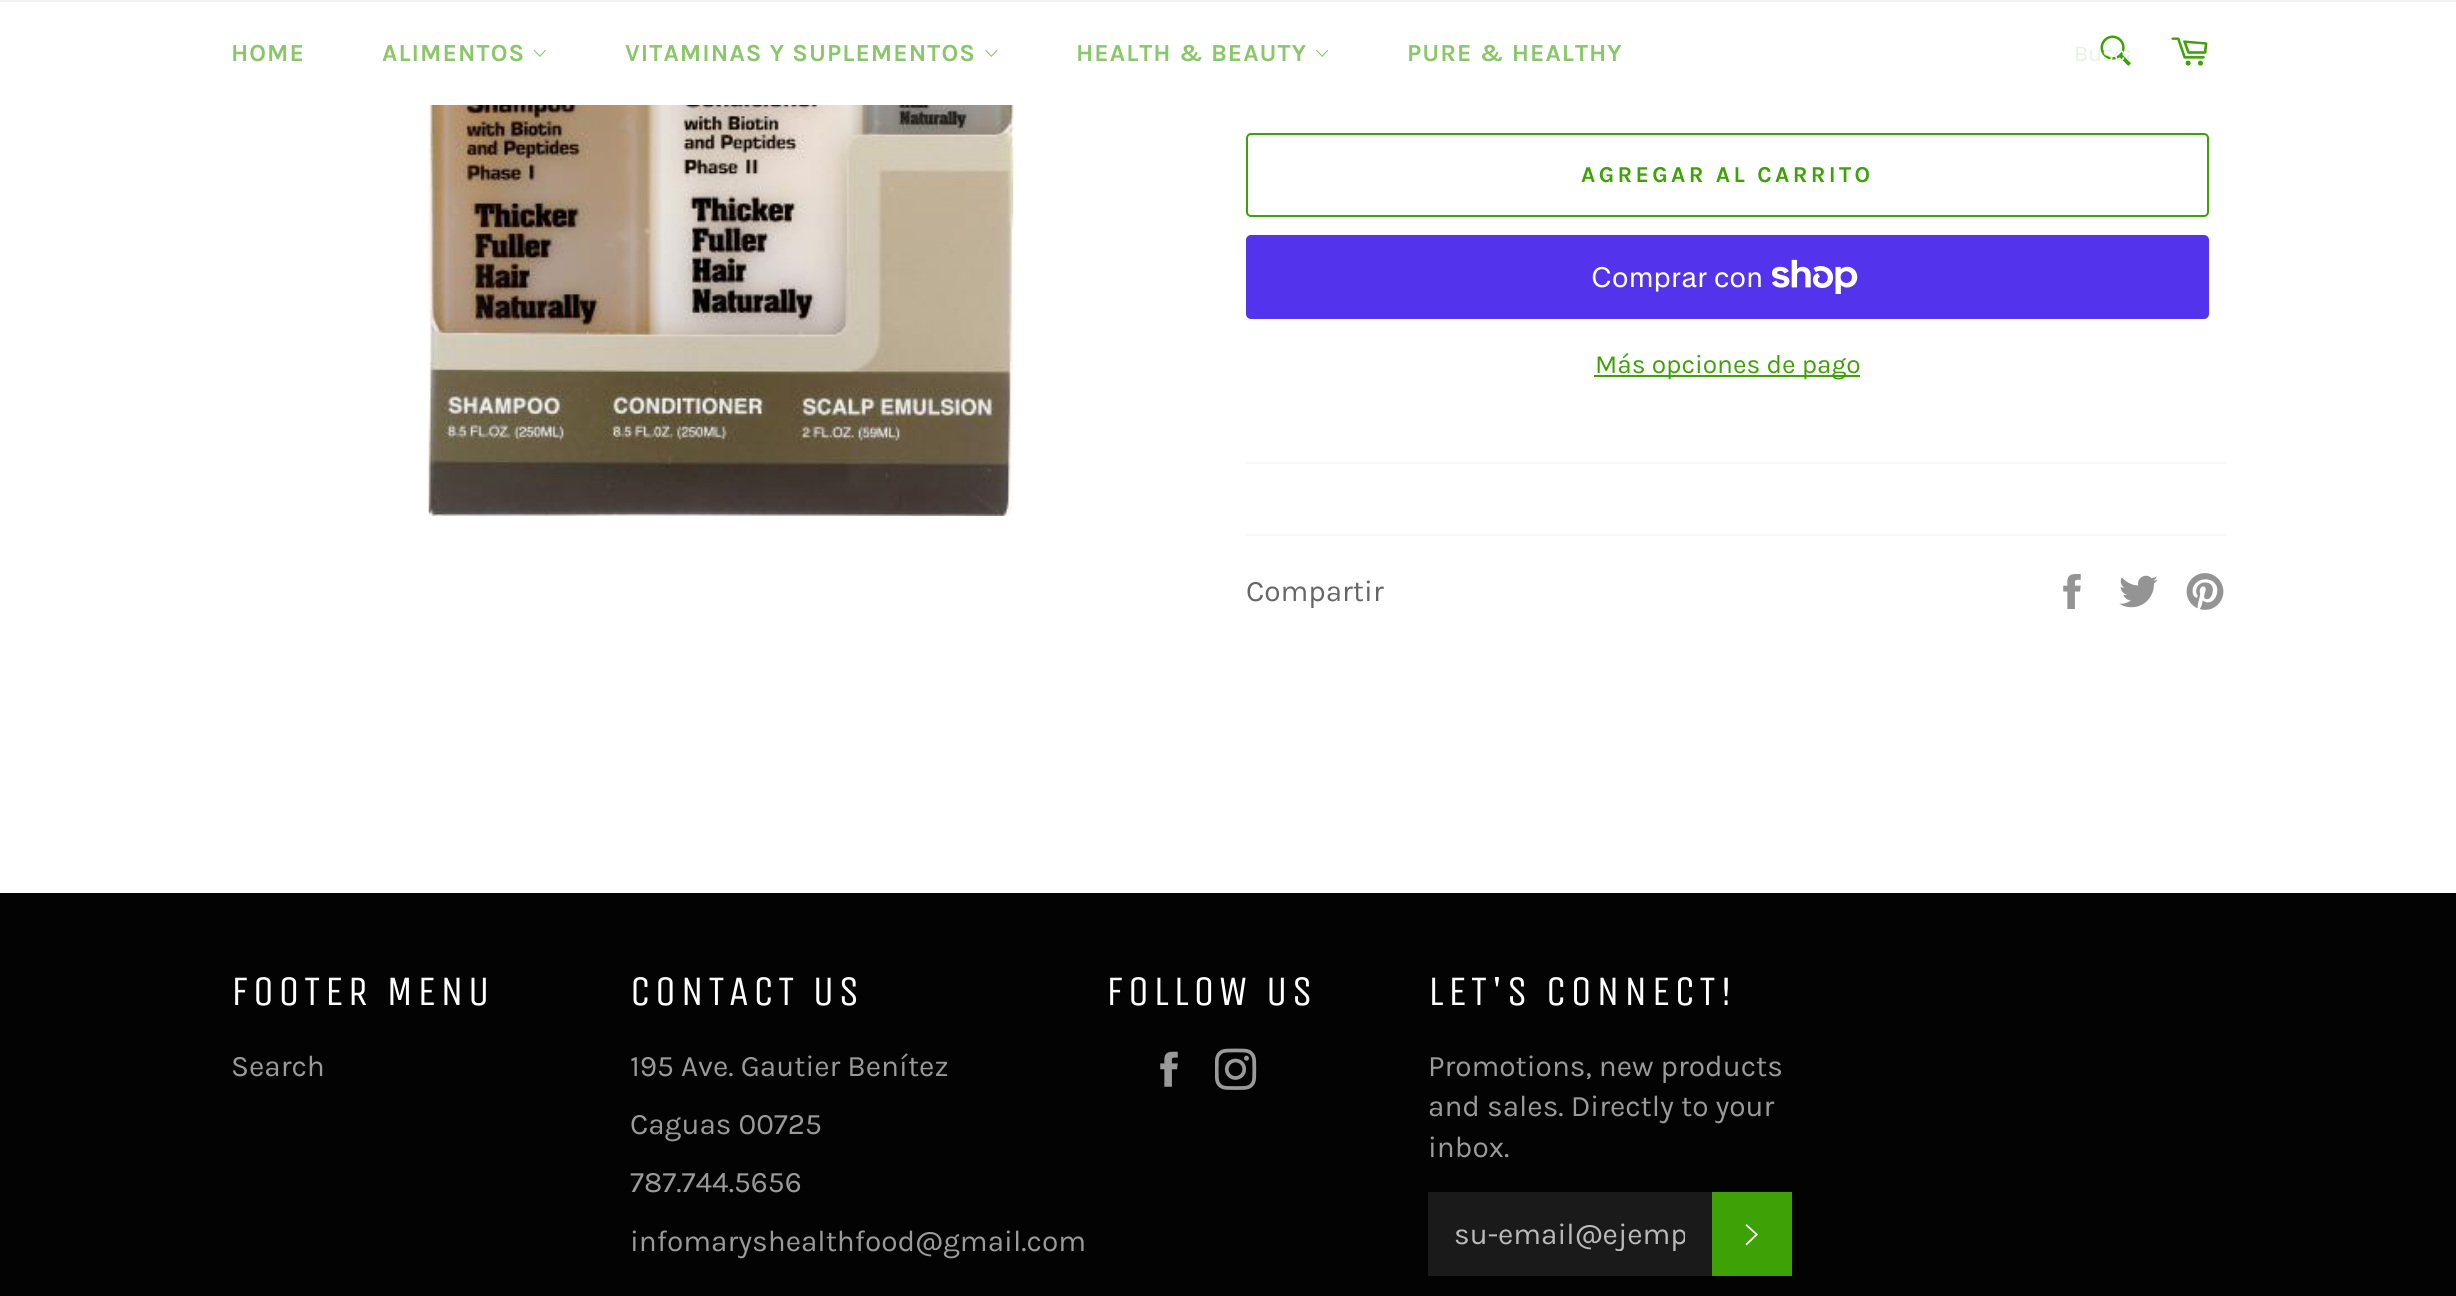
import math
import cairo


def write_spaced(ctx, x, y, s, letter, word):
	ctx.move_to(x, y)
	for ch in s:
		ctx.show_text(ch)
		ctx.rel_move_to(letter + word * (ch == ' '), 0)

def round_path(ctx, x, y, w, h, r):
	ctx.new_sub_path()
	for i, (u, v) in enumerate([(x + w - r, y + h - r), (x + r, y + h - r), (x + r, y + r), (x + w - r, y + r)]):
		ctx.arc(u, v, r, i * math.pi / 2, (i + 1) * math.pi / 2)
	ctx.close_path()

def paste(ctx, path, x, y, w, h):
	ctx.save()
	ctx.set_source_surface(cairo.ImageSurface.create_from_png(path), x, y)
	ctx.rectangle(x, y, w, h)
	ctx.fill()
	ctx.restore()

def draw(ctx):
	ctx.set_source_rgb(1, 1, 1)
	ctx.paint()
	ctx.set_source_rgb(0.949, 0.949, 0.949)
	ctx.rectangle(0, 0, 2456, 2)
	ctx.fill()
	ctx.select_font_face('Karla', cairo.FONT_SLANT_NORMAL, cairo.FONT_WEIGHT_BOLD)
	ctx.set_font_size(24.5)
	ctx.set_source_rgb(0.545, 0.78, 0.416)
	write_spaced(ctx, 231, 61, 'HOME', 1.05, 0)
	write_spaced(ctx, 382, 61, 'ALIMENTOS', 1.05, 0)
	paste(ctx, 'media/1.png', 533, 49, 13, 8)
	write_spaced(ctx, 625, 61, 'VITAMINAS Y SUPLEMENTOS', 1.05, 0)
	paste(ctx, 'media/2.png', 985, 49, 13, 8)
	write_spaced(ctx, 1076, 61, 'HEALTH & BEAUTY', 1.05, 0)
	paste(ctx, 'media/3.png', 1316, 49, 13, 8)
	write_spaced(ctx, 1407, 61, 'PURE & HEALTHY', 1.05, 0)
	paste(ctx, 'media/4.png', 2100, 35, 31, 31)
	ctx.save()
	ctx.rectangle(2074, 40, 56, 27)
	ctx.clip()
	ctx.select_font_face('Karla')
	ctx.set_font_size(22.75)
	ctx.set_source_rgb(0.902, 0.953, 0.875)
	ctx.move_to(2074, 61)
	ctx.show_text('Busca')
	ctx.restore()
	paste(ctx, 'media/5.png', 2171, 37, 37, 29)
	paste(ctx, 'media/6.png', 428, 105, 586, 411)
	round_path(ctx, 1247, 134, 961, 82, 4)
	ctx.set_source_rgb(0.243, 0.631, 0.027)
	ctx.stroke()
	ctx.set_font_size(22.75)
	write_spaced(ctx, 1581, 182, 'AGREGAR AL CARRITO', 3.4, 0)
	ctx.set_source_rgb(0.329, 0.2, 0.922)
	round_path(ctx, 1246, 235, 963, 84, 5)
	ctx.fill()
	ctx.select_font_face('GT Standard')
	ctx.set_font_size(28)
	ctx.set_source_rgb(1, 1, 1)
	ctx.move_to(1591, 287)
	ctx.show_text('Comprar con')
	paste(ctx, 'media/7.png', 1772, 259, 86, 35)
	ctx.set_source_rgb(0.243, 0.631, 0.027)
	ctx.rectangle(1594, 375, 266, 2)
	ctx.fill()
	ctx.select_font_face('Karla')
	ctx.set_font_size(26.25)
	ctx.move_to(1595, 373)
	ctx.show_text('Más opciones de pago')
	ctx.set_source_rgb(0.969, 0.969, 0.969)
	ctx.rectangle(1246, 462, 980, 2)
	ctx.fill()
	ctx.rectangle(1246, 534, 980, 2)
	ctx.fill()
	ctx.set_font_size(29.75)
	ctx.set_source_rgb(0.4, 0.4, 0.4)
	ctx.move_to(1246, 601)
	ctx.show_text('Compartir')
	paste(ctx, 'media/8.png', 2063, 574, 18, 35)
	paste(ctx, 'media/9.png', 2119, 575, 39, 33)
	paste(ctx, 'media/10.png', 2186, 573, 38, 37)
	ctx.set_source_rgb(0.012, 0.012, 0.012)
	ctx.rectangle(0, 893, 2456, 403)
	ctx.fill()
	ctx.select_font_face('Unica One')
	ctx.set_font_size(42)
	ctx.set_source_rgb(1, 1, 1)
	write_spaced(ctx, 231, 1005, 'FOOTER MENU', 4.25, 0)
	ctx.select_font_face('Karla')
	ctx.set_font_size(29.75)
	ctx.set_source_rgb(0.604, 0.604, 0.604)
	ctx.move_to(231, 1076)
	ctx.show_text('Search')
	ctx.select_font_face('Unica One')
	ctx.set_font_size(42)
	ctx.set_source_rgb(1, 1, 1)
	write_spaced(ctx, 630, 1005, 'CONTACT US', 4.25, 0)
	ctx.select_font_face('Karla')
	ctx.set_font_size(29.75)
	ctx.set_source_rgb(0.604, 0.604, 0.604)
	for x, y, s in [
		(630, 1076, '195 Ave. Gautier Benítez'),
		(630, 1134, 'Caguas 00725'),
		(630, 1192, '787.744.5656'),
		(630, 1251, 'infomaryshealthfood@gmail.com'),
	]:
		ctx.move_to(x, y)
		ctx.show_text(s)
	ctx.select_font_face('Unica One')
	ctx.set_font_size(42)
	ctx.set_source_rgb(1, 1, 1)
	write_spaced(ctx, 1106, 1005, 'FOLLOW US', 4.25, 0)
	paste(ctx, 'media/11.png', 1160, 1051, 18, 36)
	paste(ctx, 'media/12.png', 1215, 1048, 42, 42)
	write_spaced(ctx, 1428, 1005, 'LET\'S CONNECT!', 4.25, 0)
	ctx.select_font_face('Karla')
	ctx.set_font_size(29.75)
	ctx.set_source_rgb(0.604, 0.604, 0.604)
	for x, y, s in [
		(1428, 1076, 'Promotions, new products'),
		(1428, 1116, 'and sales. Directly to your'),
		(1428, 1157, 'inbox.'),
	]:
		ctx.move_to(x, y)
		ctx.show_text(s)
	ctx.set_source_rgb(0.102, 0.102, 0.102)
	ctx.rectangle(1428, 1192, 284, 84)
	ctx.fill()
	ctx.save()
	ctx.rectangle(1454, 1216, 231, 35)
	ctx.clip()
	ctx.set_source_rgb(0.729, 0.729, 0.729)
	ctx.move_to(1454, 1244)
	ctx.show_text('su-email@ejemp')
	ctx.restore()
	ctx.set_source_rgb(0.243, 0.631, 0.027)
	ctx.rectangle(1712, 1192, 80, 84)
	ctx.fill()
	ctx.set_source_rgb(1, 1, 1)
	ctx.new_path()
	ctx.move_to(1745.5, 1225.5)
	ctx.line_to(1746.5, 1224)
	ctx.line_to(1758, 1234.5)
	ctx.line_to(1746.5, 1245.5)
	ctx.line_to(1745.5, 1244)
	ctx.line_to(1755.5, 1234.5)
	ctx.close_path()
	ctx.fill()


surface = cairo.ImageSurface(cairo.FORMAT_RGB24, 2456, 1296)
ctx = cairo.Context(surface)
options = cairo.FontOptions()
options.set_hint_metrics(cairo.HINT_METRICS_OFF)
options.set_hint_style(cairo.HINT_STYLE_NONE)
ctx.set_font_options(options)
ctx.set_miter_limit(4)
draw(ctx)
surface.write_to_png('image.png')
